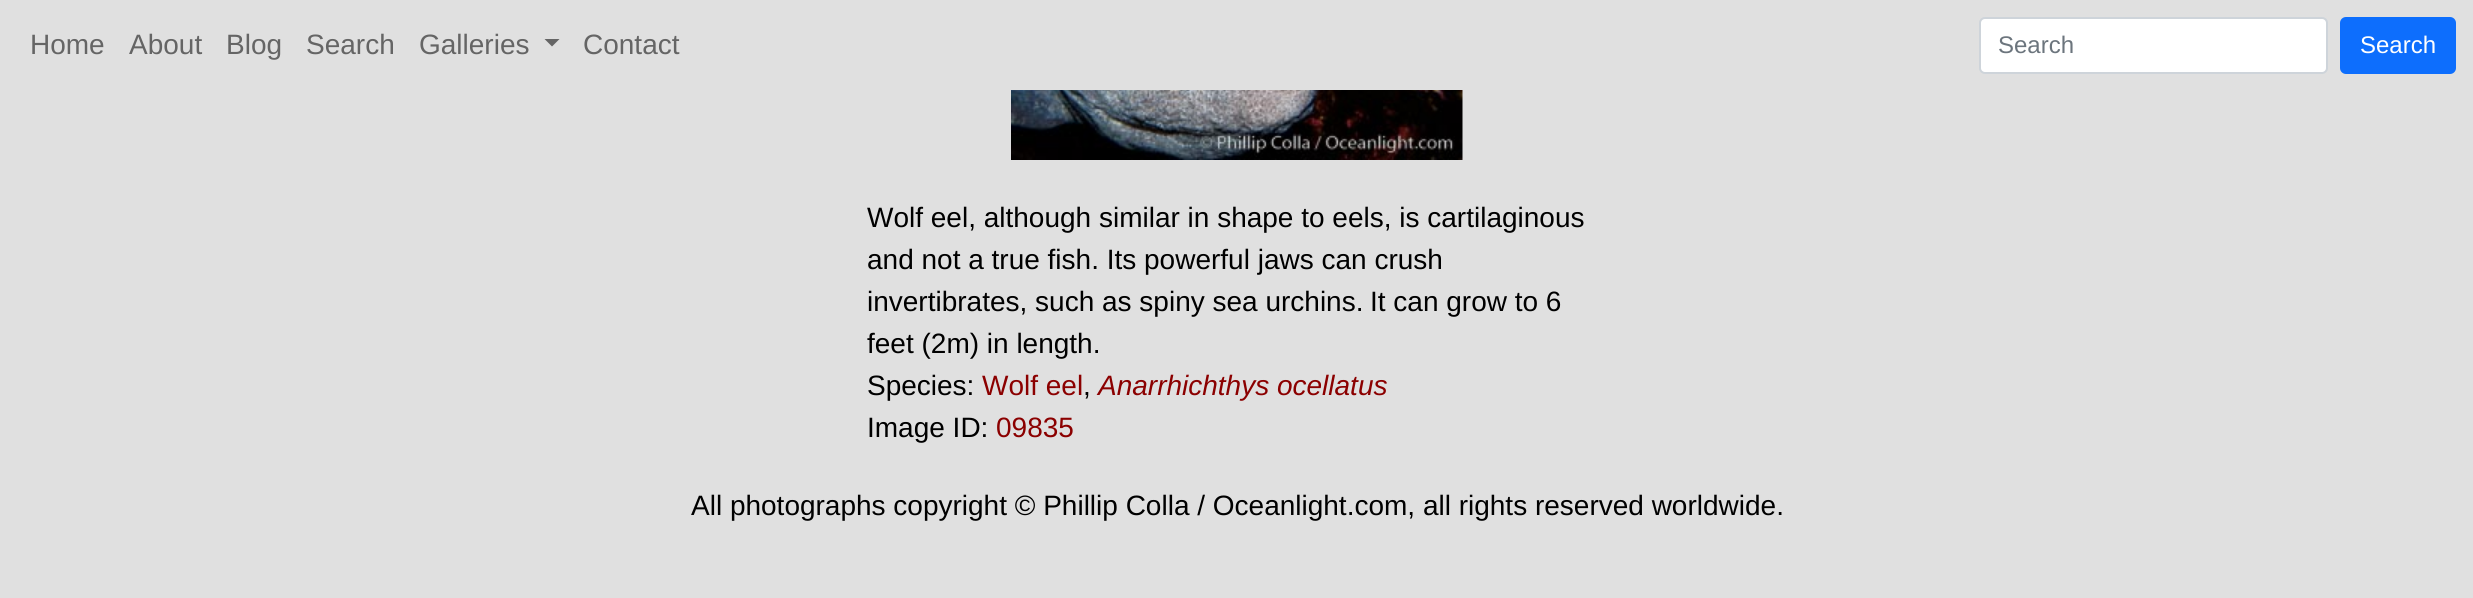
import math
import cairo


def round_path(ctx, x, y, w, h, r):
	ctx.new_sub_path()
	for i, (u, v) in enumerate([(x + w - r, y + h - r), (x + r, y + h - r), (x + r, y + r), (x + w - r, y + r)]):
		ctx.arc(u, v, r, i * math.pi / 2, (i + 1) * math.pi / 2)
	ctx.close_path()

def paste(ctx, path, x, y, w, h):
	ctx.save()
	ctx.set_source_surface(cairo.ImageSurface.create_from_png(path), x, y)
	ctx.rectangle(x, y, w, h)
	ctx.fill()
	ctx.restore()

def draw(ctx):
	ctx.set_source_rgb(0.878, 0.878, 0.878)
	ctx.paint()
	ctx.select_font_face('Liberation Sans')
	ctx.set_font_size(28)
	ctx.set_source_rgb(0.396, 0.396, 0.396)
	for x, y, s in [
		(30, 54, 'Home'),
		(129, 54, 'About'),
		(226, 54, 'Blog'),
		(306, 54, 'Search'),
		(419, 54, 'Galleries'),
	]:
		ctx.move_to(x, y)
		ctx.show_text(s)
	ctx.new_path()
	ctx.move_to(544.5, 39)
	ctx.line_to(559.5, 39)
	ctx.line_to(552, 46.5)
	ctx.close_path()
	ctx.fill()
	ctx.move_to(583, 54)
	ctx.show_text('Contact')
	ctx.set_source_rgb(1, 1, 1)
	round_path(ctx, 1980, 18, 347, 55, 5)
	ctx.fill_preserve()
	ctx.set_source_rgb(0.808, 0.831, 0.855)
	ctx.stroke()
	ctx.set_font_size(24)
	ctx.set_source_rgb(0.424, 0.459, 0.49)
	ctx.move_to(1998, 53)
	ctx.show_text('Search')
	ctx.set_source_rgb(0.051, 0.431, 0.992)
	round_path(ctx, 2341, 18, 114, 55, 5)
	ctx.fill_preserve()
	ctx.stroke()
	ctx.set_source_rgb(1, 1, 1)
	ctx.move_to(2360, 53)
	ctx.show_text('Search')
	paste(ctx, 'media/1.png', 1011, 90, 452, 70)
	ctx.set_font_size(28)
	ctx.set_source_rgb(0, 0, 0)
	for x, y, s in [
		(867, 227, 'Wolf eel, although similar in shape to eels, is cartilaginous'),
		(867, 269, 'and not a true fish. Its powerful jaws can crush'),
		(867, 311, 'invertibrates, such as spiny sea urchins.'),
		(1370, 311, 'It can grow to 6'),
		(867, 353, 'feet (2m) in length.'),
		(867, 395, 'Species:'),
	]:
		ctx.move_to(x, y)
		ctx.show_text(s)
	ctx.set_source_rgb(0.545, 0, 0)
	ctx.move_to(982, 395)
	ctx.show_text('Wolf eel')
	ctx.set_source_rgb(0, 0, 0)
	ctx.move_to(1083, 395)
	ctx.show_text(',')
	ctx.select_font_face('Liberation Sans', cairo.FONT_SLANT_ITALIC)
	ctx.set_source_rgb(0.545, 0, 0)
	ctx.move_to(1098, 395)
	ctx.show_text('Anarrhichthys ocellatus')
	ctx.select_font_face('Liberation Sans')
	ctx.set_source_rgb(0, 0, 0)
	ctx.move_to(867, 437)
	ctx.show_text('Image ID:')
	ctx.set_source_rgb(0.545, 0, 0)
	ctx.move_to(996, 437)
	ctx.show_text('09835')
	ctx.set_source_rgb(0, 0, 0)
	ctx.move_to(691, 515)
	ctx.show_text('All photographs copyright © Phillip Colla / Oceanlight.com, all rights reserved worldwide.')


surface = cairo.ImageSurface(cairo.FORMAT_RGB24, 2473, 598)
ctx = cairo.Context(surface)
options = cairo.FontOptions()
options.set_hint_metrics(cairo.HINT_METRICS_OFF)
options.set_hint_style(cairo.HINT_STYLE_NONE)
ctx.set_font_options(options)
ctx.set_miter_limit(4)
draw(ctx)
surface.write_to_png('image.png')
